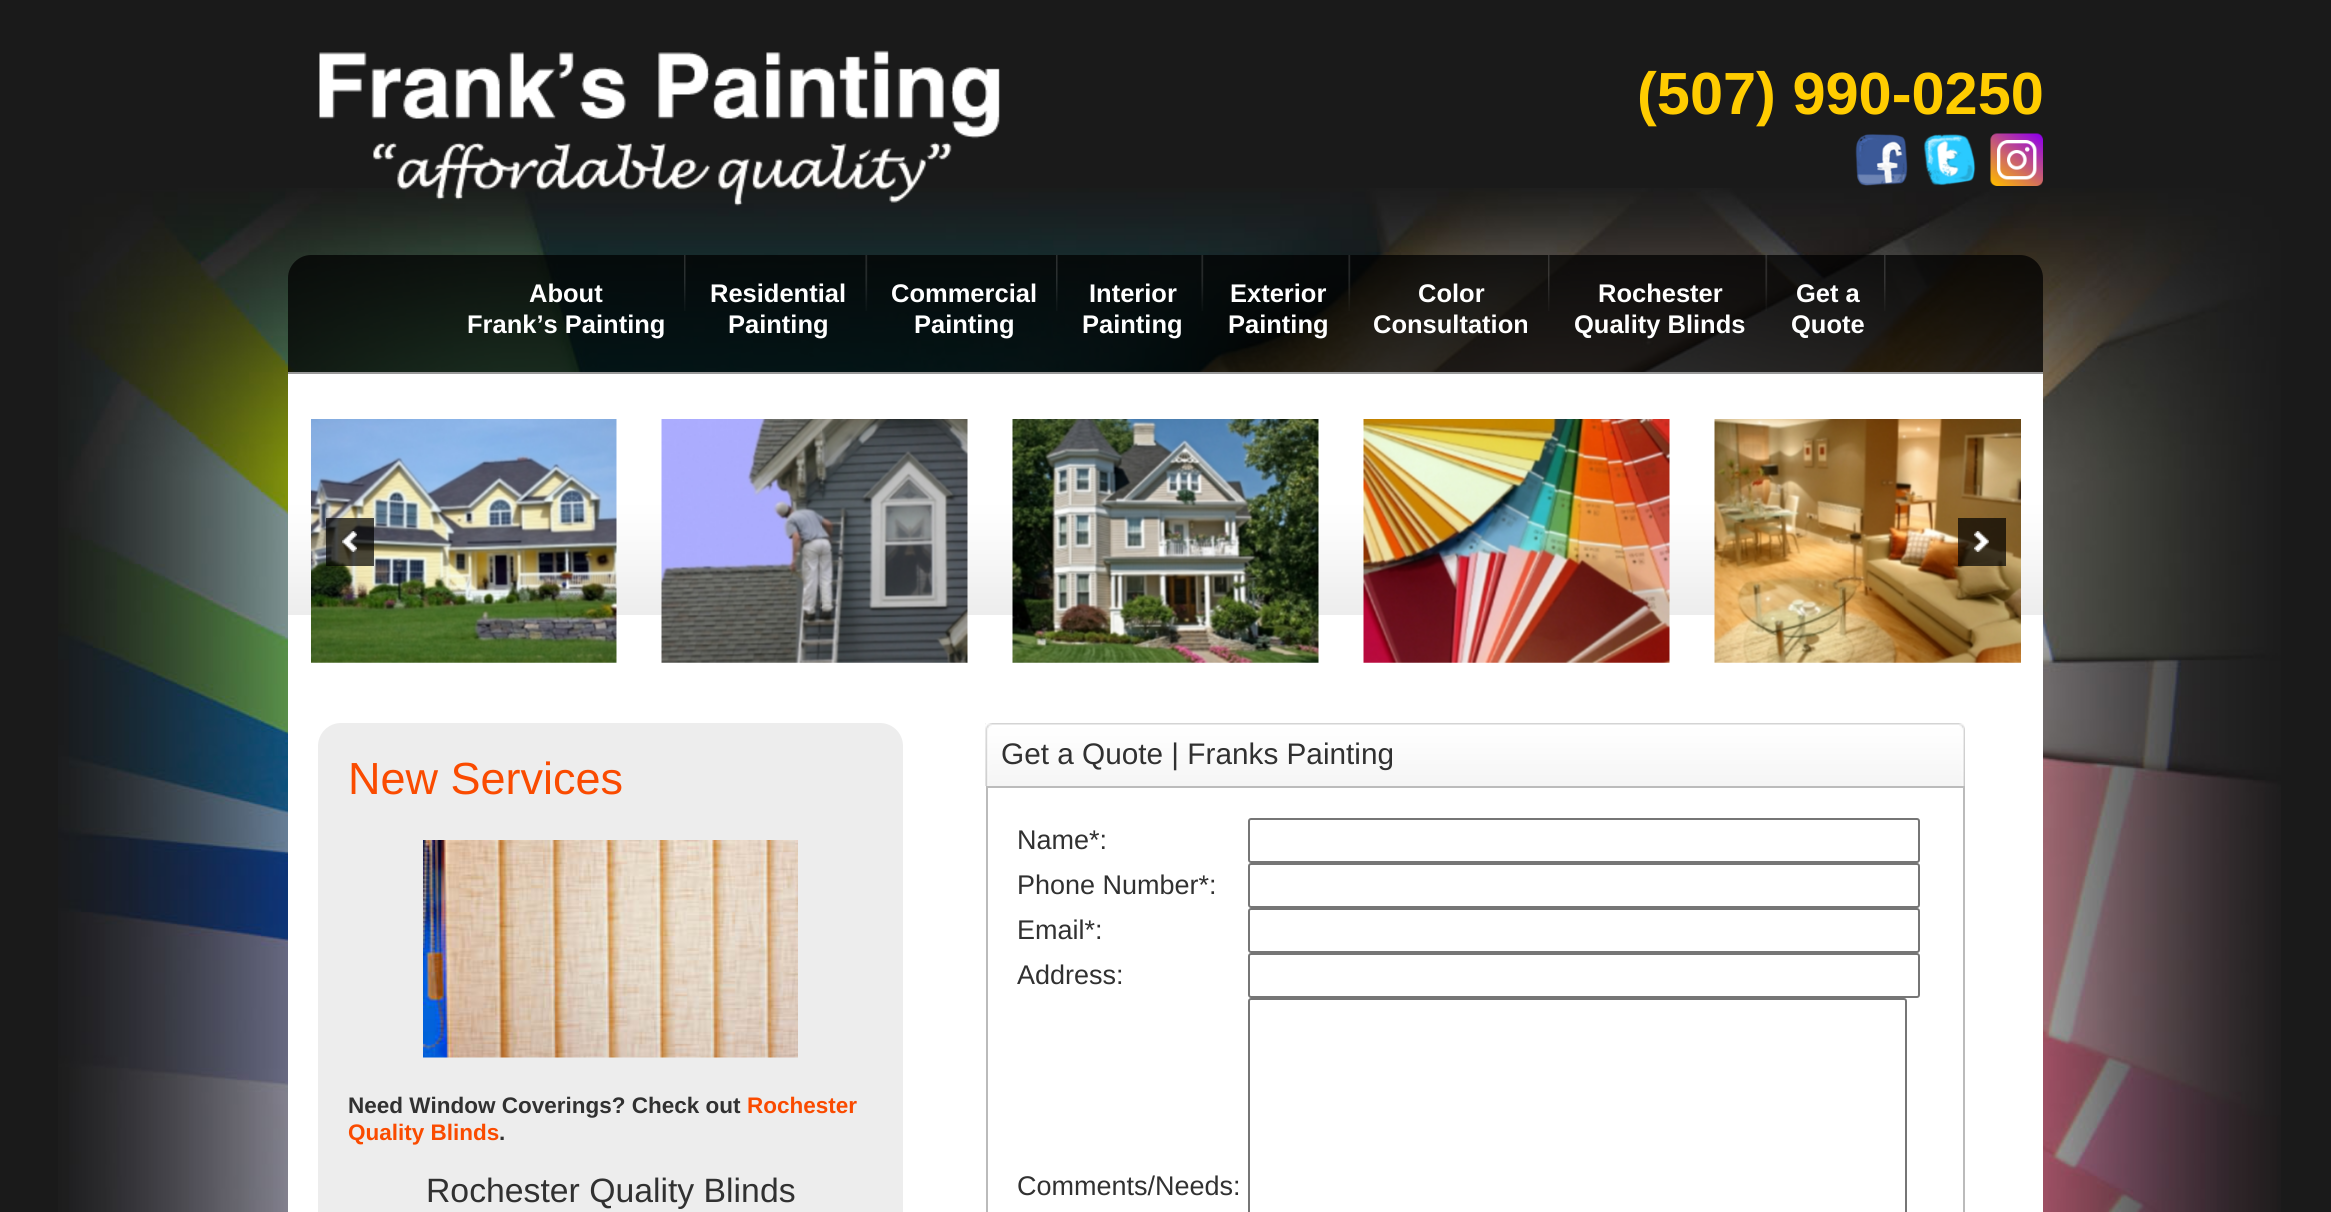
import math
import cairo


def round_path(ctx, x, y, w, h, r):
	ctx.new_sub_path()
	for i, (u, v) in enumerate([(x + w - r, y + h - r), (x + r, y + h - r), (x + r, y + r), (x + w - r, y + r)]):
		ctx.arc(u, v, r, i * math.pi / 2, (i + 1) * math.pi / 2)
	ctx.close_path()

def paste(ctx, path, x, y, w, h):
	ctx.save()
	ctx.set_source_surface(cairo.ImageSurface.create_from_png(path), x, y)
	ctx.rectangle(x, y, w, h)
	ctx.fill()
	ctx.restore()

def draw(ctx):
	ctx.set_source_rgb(0.102, 0.102, 0.102)
	ctx.paint()
	paste(ctx, 'media/1.png', 58, 188, 2223, 1024)
	paste(ctx, 'media/2.png', 319, 50, 681, 156)
	ctx.select_font_face('Liberation Sans', cairo.FONT_SLANT_NORMAL, cairo.FONT_WEIGHT_BOLD)
	ctx.set_font_size(59.5)
	ctx.set_source_rgb(1, 0.8, 0)
	ctx.move_to(1637, 114)
	ctx.show_text('(507) 990-0250')
	paste(ctx, 'media/3.png', 1855, 134, 53, 52)
	paste(ctx, 'media/4.png', 1923, 134, 53, 52)
	paste(ctx, 'media/5.png', 1990, 133, 53, 53)
	ctx.set_source_rgba(0, 0, 0, 0.75)
	ctx.new_path()
	ctx.move_to(311, 255)
	ctx.line_to(2020, 255)
	ctx.curve_to(2032.5, 255, 2043, 265.5, 2043, 278)
	ctx.line_to(2043, 374)
	ctx.line_to(288, 374)
	ctx.line_to(288, 278)
	ctx.curve_to(288, 265.5, 298.5, 255, 311, 255)
	ctx.close_path()
	ctx.fill()
	ctx.set_source_rgb(0.6, 0.6, 0.6)
	ctx.rectangle(288, 372, 1755, 2)
	ctx.fill()
	paste(ctx, 'media/6.png', 684, 255, 2, 56)
	ctx.set_font_size(25.5)
	ctx.set_source_rgb(1, 1, 1)
	ctx.move_to(529, 302)
	ctx.show_text('About')
	ctx.move_to(467, 333)
	ctx.show_text('Frank’s Painting')
	paste(ctx, 'media/7.png', 865, 255, 3, 56)
	ctx.move_to(710, 302)
	ctx.show_text('Residential')
	ctx.move_to(728, 333)
	ctx.show_text('Painting')
	paste(ctx, 'media/8.png', 1056, 255, 2, 56)
	ctx.move_to(891, 302)
	ctx.show_text('Commercial')
	ctx.move_to(914, 333)
	ctx.show_text('Painting')
	paste(ctx, 'media/9.png', 1201, 255, 3, 56)
	ctx.move_to(1089, 302)
	ctx.show_text('Interior')
	ctx.move_to(1082, 333)
	ctx.show_text('Painting')
	paste(ctx, 'media/10.png', 1348, 255, 3, 56)
	ctx.move_to(1230, 302)
	ctx.show_text('Exterior')
	ctx.move_to(1228, 333)
	ctx.show_text('Painting')
	paste(ctx, 'media/11.png', 1548, 255, 2, 56)
	ctx.move_to(1418, 302)
	ctx.show_text('Color')
	ctx.move_to(1373, 333)
	ctx.show_text('Consultation')
	paste(ctx, 'media/12.png', 1765, 255, 3, 56)
	ctx.move_to(1598, 302)
	ctx.show_text('Rochester')
	ctx.move_to(1574, 333)
	ctx.show_text('Quality Blinds')
	paste(ctx, 'media/13.png', 1884, 255, 2, 56)
	ctx.move_to(1796, 302)
	ctx.show_text('Get a')
	ctx.move_to(1791, 333)
	ctx.show_text('Quote')
	paste(ctx, 'media/14.png', 288, 374, 1755, 241)
	ctx.rectangle(288, 615, 1755, 597)
	ctx.fill()
	paste(ctx, 'media/15.png', 311, 419, 306, 244)
	paste(ctx, 'media/16.png', 661, 419, 307, 244)
	paste(ctx, 'media/17.png', 1012, 419, 307, 244)
	paste(ctx, 'media/18.png', 1363, 419, 307, 244)
	paste(ctx, 'media/19.png', 1714, 419, 307, 244)
	ctx.set_source_rgba(0, 0, 0, 0.7)
	ctx.rectangle(326, 518, 48, 48)
	ctx.fill()
	paste(ctx, 'media/20.png', 342, 531, 15, 21)
	ctx.rectangle(1958, 518, 48, 48)
	ctx.fill()
	paste(ctx, 'media/21.png', 1974, 531, 15, 21)
	ctx.set_source_rgb(0.929, 0.929, 0.929)
	round_path(ctx, 318, 723, 585, 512, 23)
	ctx.fill()
	ctx.select_font_face('Liberation Sans')
	ctx.set_font_size(45)
	ctx.set_source_rgb(0.98, 0.294, 0)
	ctx.move_to(348, 794)
	ctx.show_text('New Services')
	paste(ctx, 'media/22.png', 423, 840, 375, 218)
	ctx.select_font_face('Liberation Sans', cairo.FONT_SLANT_NORMAL, cairo.FONT_WEIGHT_BOLD)
	ctx.set_font_size(22.5)
	ctx.set_source_rgb(0.192, 0.192, 0.192)
	ctx.move_to(348, 1113)
	ctx.show_text('Need Window Coverings? Check out')
	ctx.set_source_rgb(0.98, 0.294, 0)
	ctx.move_to(747, 1113)
	ctx.show_text('Rochester')
	ctx.move_to(348, 1140)
	ctx.show_text('Quality Blinds')
	ctx.set_source_rgb(0.192, 0.192, 0.192)
	ctx.move_to(499, 1140)
	ctx.show_text('.')
	ctx.select_font_face('Liberation Sans')
	ctx.set_font_size(33.75)
	ctx.move_to(426, 1202)
	ctx.show_text('Rochester Quality Blinds')
	paste(ctx, 'media/23.png', 985, 723, 974, 63)
	paste(ctx, 'media/24.png', 985, 723, 7, 63)
	paste(ctx, 'media/25.png', 1959, 723, 6, 63)
	ctx.set_font_size(29.75)
	ctx.move_to(1001, 764)
	ctx.show_text('Get a Quote | Franks Painting')
	ctx.rectangle(987, 787, 977, 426)
	ctx.set_source_rgb(0.733, 0.733, 0.733)
	ctx.stroke()
	ctx.set_font_size(27)
	ctx.set_source_rgb(0.192, 0.192, 0.192)
	ctx.move_to(1017, 849)
	ctx.show_text('Name*:')
	round_path(ctx, 1249, 819, 670, 43, 2)
	ctx.set_source_rgb(0.463, 0.463, 0.463)
	ctx.stroke()
	ctx.set_source_rgb(0.192, 0.192, 0.192)
	ctx.move_to(1017, 894)
	ctx.show_text('Phone Number*:')
	round_path(ctx, 1249, 864, 670, 43, 2)
	ctx.set_source_rgb(0.463, 0.463, 0.463)
	ctx.stroke()
	ctx.set_source_rgb(0.192, 0.192, 0.192)
	ctx.move_to(1017, 939)
	ctx.show_text('Email*:')
	round_path(ctx, 1249, 909, 670, 43, 2)
	ctx.set_source_rgb(0.463, 0.463, 0.463)
	ctx.stroke()
	ctx.set_source_rgb(0.192, 0.192, 0.192)
	ctx.move_to(1017, 984)
	ctx.show_text('Address:')
	round_path(ctx, 1249, 954, 670, 43, 2)
	ctx.set_source_rgb(0.463, 0.463, 0.463)
	ctx.stroke()
	ctx.set_source_rgb(0.192, 0.192, 0.192)
	ctx.move_to(1017, 1195)
	ctx.show_text('Comments/Needs:')
	round_path(ctx, 1249, 999, 657, 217, 2)
	ctx.set_source_rgb(0.463, 0.463, 0.463)
	ctx.stroke()


surface = cairo.ImageSurface(cairo.FORMAT_RGB24, 2331, 1212)
ctx = cairo.Context(surface)
options = cairo.FontOptions()
options.set_hint_metrics(cairo.HINT_METRICS_OFF)
options.set_hint_style(cairo.HINT_STYLE_NONE)
ctx.set_font_options(options)
ctx.set_miter_limit(4)
draw(ctx)
surface.write_to_png('image.png')
